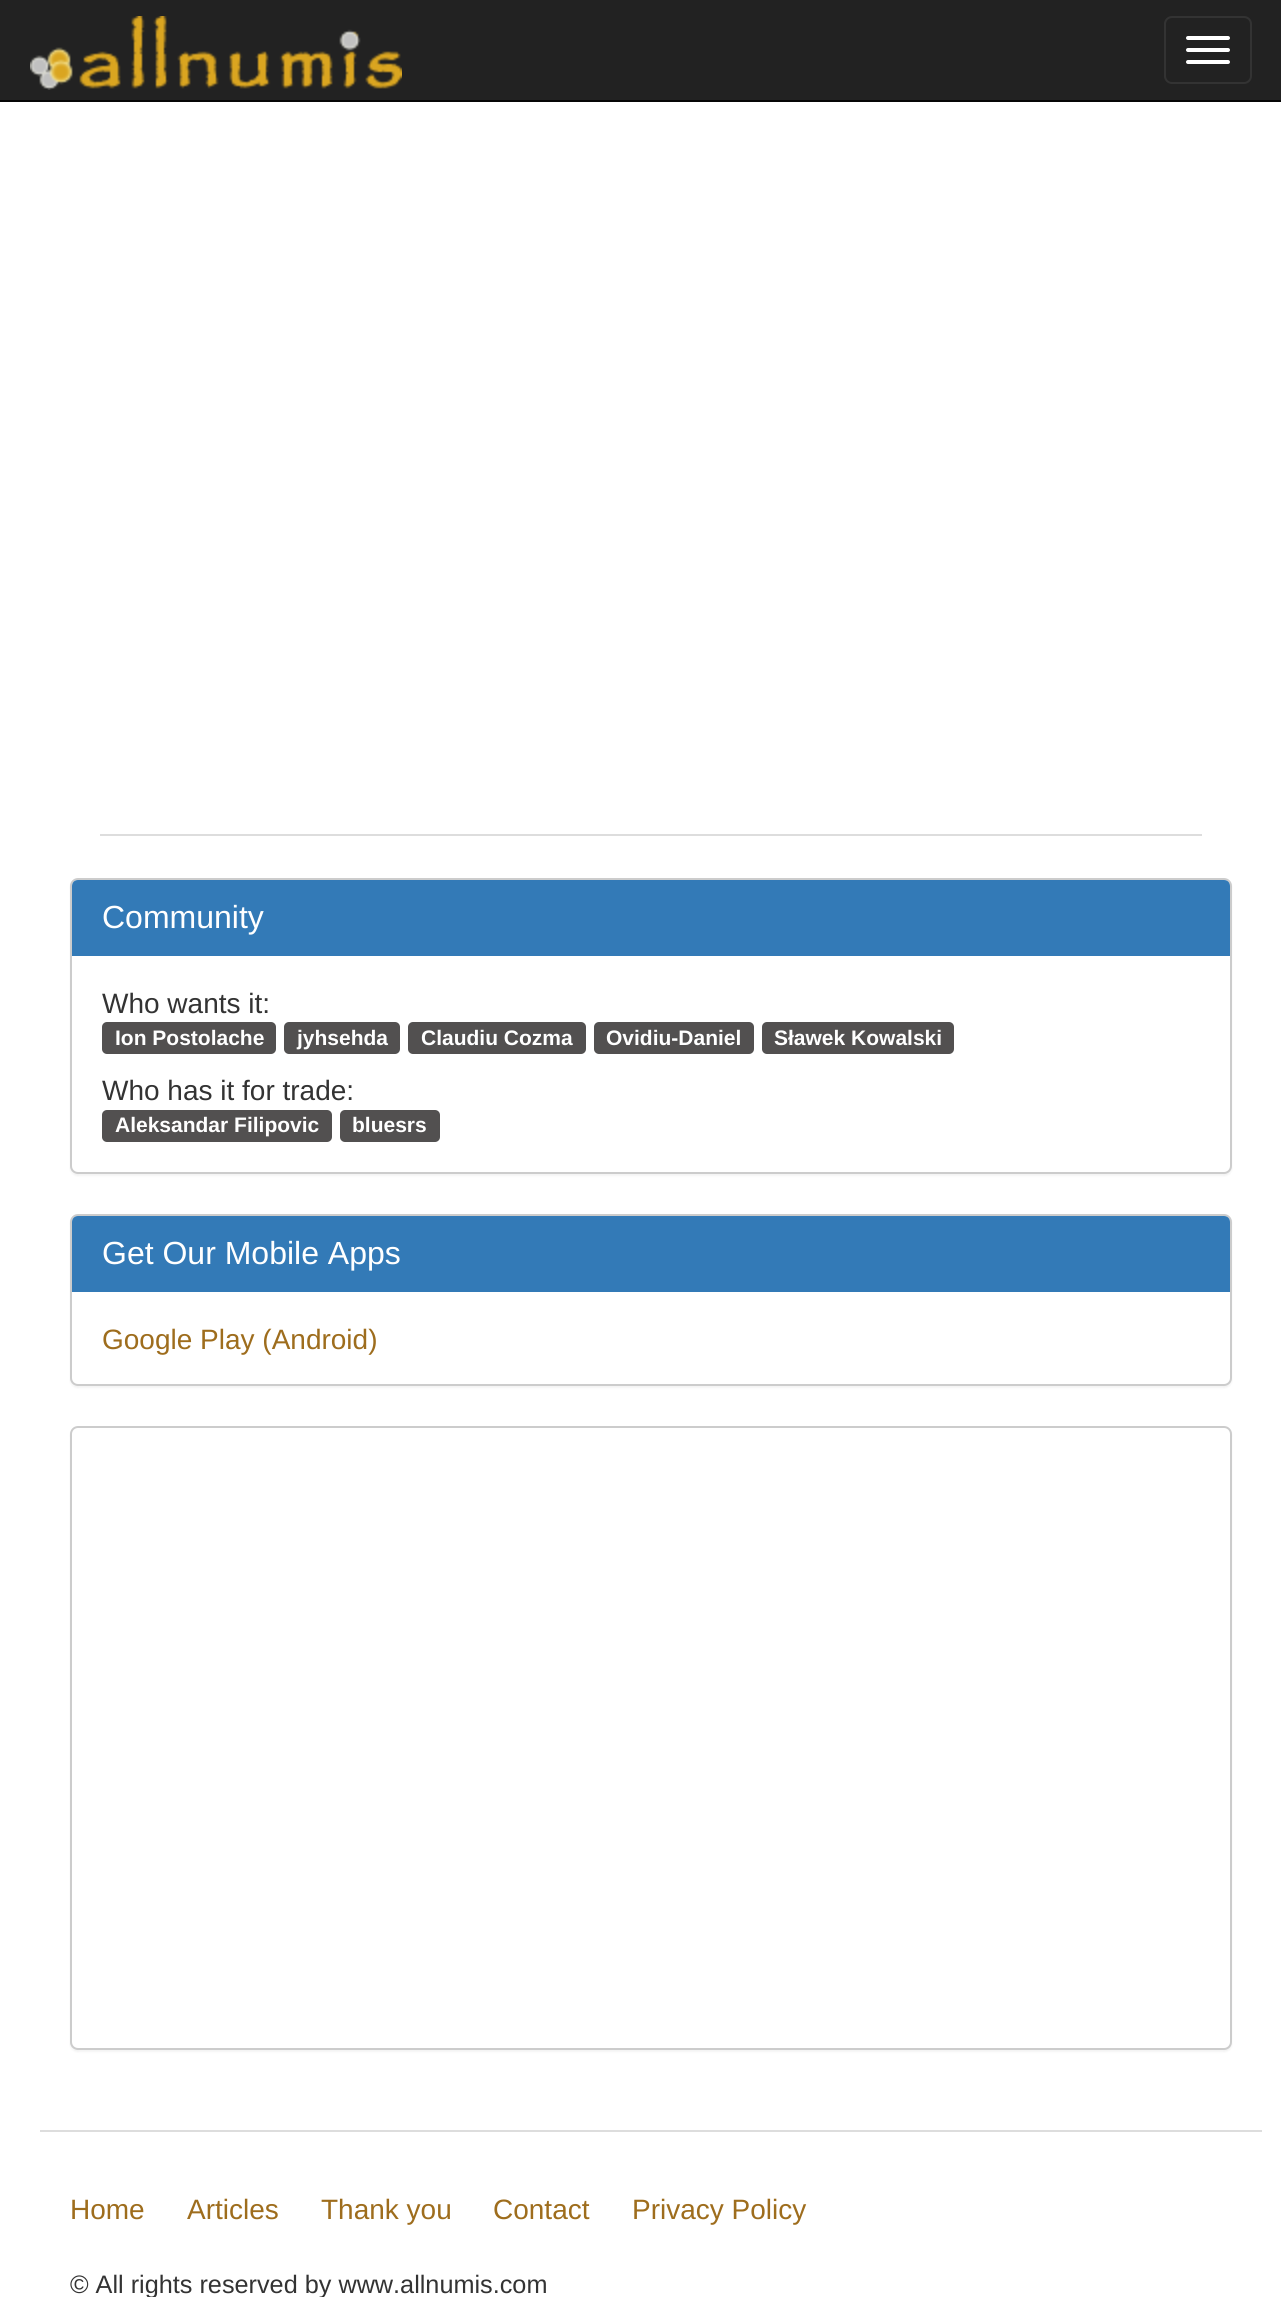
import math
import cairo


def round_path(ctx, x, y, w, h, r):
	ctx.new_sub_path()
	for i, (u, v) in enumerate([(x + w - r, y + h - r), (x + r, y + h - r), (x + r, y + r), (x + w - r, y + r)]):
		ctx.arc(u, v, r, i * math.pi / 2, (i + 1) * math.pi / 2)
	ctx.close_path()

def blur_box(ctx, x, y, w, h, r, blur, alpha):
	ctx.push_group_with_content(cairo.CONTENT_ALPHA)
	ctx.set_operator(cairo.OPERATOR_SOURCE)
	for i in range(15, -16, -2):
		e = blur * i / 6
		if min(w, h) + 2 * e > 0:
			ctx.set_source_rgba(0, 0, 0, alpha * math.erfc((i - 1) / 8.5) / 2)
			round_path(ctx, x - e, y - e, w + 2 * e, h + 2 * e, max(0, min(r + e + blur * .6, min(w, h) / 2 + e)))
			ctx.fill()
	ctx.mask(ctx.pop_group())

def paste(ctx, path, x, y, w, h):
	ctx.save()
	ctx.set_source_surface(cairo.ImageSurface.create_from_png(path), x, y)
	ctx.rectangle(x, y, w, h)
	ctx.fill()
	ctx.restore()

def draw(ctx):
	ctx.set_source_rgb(1, 1, 1)
	ctx.paint()
	ctx.set_source_rgb(0.133, 0.133, 0.133)
	ctx.rectangle(0, 0, 1281, 100)
	ctx.fill()
	ctx.set_source_rgb(0.031, 0.031, 0.031)
	ctx.rectangle(0, 100, 1281, 2)
	ctx.fill()
	paste(ctx, 'media/1.png', 30, 16, 372, 74)
	round_path(ctx, 1165, 17, 86, 66, 7)
	ctx.set_source_rgb(0.2, 0.2, 0.2)
	ctx.stroke()
	ctx.set_source_rgb(1, 1, 1)
	round_path(ctx, 1186, 36, 44, 4, 2)
	ctx.fill()
	round_path(ctx, 1186, 48, 44, 4, 2)
	ctx.fill()
	round_path(ctx, 1186, 60, 44, 4, 2)
	ctx.fill()
	ctx.set_source_rgb(0.867, 0.867, 0.867)
	ctx.rectangle(100, 834, 1102, 2)
	ctx.fill()
	ctx.set_source_rgb(0, 0, 0)
	blur_box(ctx, 70, 880, 1162, 296, 8, 1, 0.05)
	ctx.set_source_rgb(1, 1, 1)
	round_path(ctx, 71, 879, 1160, 294, 7)
	ctx.fill_preserve()
	ctx.set_source_rgb(0.8, 0.8, 0.8)
	ctx.stroke()
	ctx.set_source_rgb(0.2, 0.478, 0.718)
	ctx.new_path()
	ctx.move_to(78, 880)
	ctx.line_to(1224, 880)
	ctx.curve_to(1227.5, 880, 1230, 882.5, 1230, 886)
	ctx.line_to(1230, 956)
	ctx.line_to(72, 956)
	ctx.line_to(72, 886)
	ctx.curve_to(72, 882.5, 74.5, 880, 78, 880)
	ctx.close_path()
	ctx.fill()
	ctx.select_font_face('Liberation Sans')
	ctx.set_font_size(32)
	ctx.set_source_rgb(1, 1, 1)
	ctx.move_to(102, 928)
	ctx.show_text('Community')
	ctx.set_font_size(28)
	ctx.set_source_rgb(0.2, 0.2, 0.2)
	ctx.move_to(102, 1013)
	ctx.show_text('Who wants it:')
	ctx.set_source_rgb(0.322, 0.314, 0.314)
	round_path(ctx, 102, 1022, 174, 32, 5)
	ctx.fill()
	ctx.select_font_face('Liberation Sans', cairo.FONT_SLANT_NORMAL, cairo.FONT_WEIGHT_BOLD)
	ctx.set_font_size(21)
	ctx.set_source_rgb(1, 1, 1)
	ctx.move_to(115, 1045)
	ctx.show_text('Ion Postolache')
	ctx.set_source_rgb(0.322, 0.314, 0.314)
	round_path(ctx, 284, 1022, 116, 32, 5)
	ctx.fill()
	ctx.set_source_rgb(1, 1, 1)
	ctx.move_to(297, 1045)
	ctx.show_text('jyhsehda')
	ctx.set_source_rgb(0.322, 0.314, 0.314)
	round_path(ctx, 408, 1022, 178, 32, 5)
	ctx.fill()
	ctx.set_source_rgb(1, 1, 1)
	ctx.move_to(421, 1045)
	ctx.show_text('Claudiu Cozma')
	ctx.set_source_rgb(0.322, 0.314, 0.314)
	round_path(ctx, 594, 1022, 160, 32, 5)
	ctx.fill()
	ctx.set_source_rgb(1, 1, 1)
	ctx.move_to(606, 1045)
	ctx.show_text('Ovidiu-Daniel')
	ctx.set_source_rgb(0.322, 0.314, 0.314)
	round_path(ctx, 762, 1022, 192, 32, 5)
	ctx.fill()
	ctx.set_source_rgb(1, 1, 1)
	ctx.move_to(774, 1045)
	ctx.show_text('Sławek Kowalski')
	ctx.select_font_face('Liberation Sans')
	ctx.set_font_size(28)
	ctx.set_source_rgb(0.2, 0.2, 0.2)
	ctx.move_to(102, 1100)
	ctx.show_text('Who has it for trade:')
	ctx.set_source_rgb(0.322, 0.314, 0.314)
	round_path(ctx, 102, 1110, 230, 32, 5)
	ctx.fill()
	ctx.select_font_face('Liberation Sans', cairo.FONT_SLANT_NORMAL, cairo.FONT_WEIGHT_BOLD)
	ctx.set_font_size(21)
	ctx.set_source_rgb(1, 1, 1)
	ctx.move_to(115, 1132)
	ctx.show_text('Aleksandar Filipovic')
	ctx.set_source_rgb(0.322, 0.314, 0.314)
	round_path(ctx, 340, 1110, 100, 32, 5)
	ctx.fill()
	ctx.set_source_rgb(1, 1, 1)
	ctx.move_to(352, 1132)
	ctx.show_text('bluesrs')
	ctx.set_source_rgb(0, 0, 0)
	blur_box(ctx, 70, 1216, 1162, 172, 8, 1, 0.05)
	ctx.set_source_rgb(1, 1, 1)
	round_path(ctx, 71, 1215, 1160, 170, 7)
	ctx.fill_preserve()
	ctx.set_source_rgb(0.8, 0.8, 0.8)
	ctx.stroke()
	ctx.set_source_rgb(0.2, 0.478, 0.718)
	ctx.new_path()
	ctx.move_to(78, 1216)
	ctx.line_to(1224, 1216)
	ctx.curve_to(1227.5, 1216, 1230, 1218.5, 1230, 1222)
	ctx.line_to(1230, 1292)
	ctx.line_to(72, 1292)
	ctx.line_to(72, 1222)
	ctx.curve_to(72, 1218.5, 74.5, 1216, 78, 1216)
	ctx.close_path()
	ctx.fill()
	ctx.select_font_face('Liberation Sans')
	ctx.set_font_size(32)
	ctx.set_source_rgb(1, 1, 1)
	ctx.move_to(102, 1264)
	ctx.show_text('Get Our Mobile Apps')
	ctx.set_font_size(28)
	ctx.set_source_rgb(0.62, 0.427, 0.114)
	ctx.move_to(102, 1349)
	ctx.show_text('Google Play (Android)')
	ctx.set_source_rgb(0, 0, 0)
	blur_box(ctx, 70, 1428, 1162, 624, 8, 1, 0.05)
	ctx.set_source_rgb(1, 1, 1)
	round_path(ctx, 71, 1427, 1160, 622, 7)
	ctx.fill_preserve()
	ctx.set_source_rgb(0.8, 0.8, 0.8)
	ctx.stroke()
	ctx.set_source_rgb(0.867, 0.867, 0.867)
	ctx.rectangle(40, 2130, 1222, 2)
	ctx.fill()
	ctx.set_source_rgb(0.62, 0.427, 0.114)
	for x, y, s in [
		(70, 2219, 'Home'),
		(187, 2219, 'Articles'),
		(321, 2219, 'Thank you'),
		(493, 2219, 'Contact'),
		(632, 2219, 'Privacy Policy'),
	]:
		ctx.move_to(x, y)
		ctx.show_text(s)
	ctx.set_font_size(25.25)
	ctx.set_source_rgb(0.2, 0.2, 0.2)
	ctx.move_to(70, 2293)
	ctx.show_text('© All rights reserved by www.allnumis.com')


surface = cairo.ImageSurface(cairo.FORMAT_RGB24, 1281, 2297)
ctx = cairo.Context(surface)
options = cairo.FontOptions()
options.set_hint_metrics(cairo.HINT_METRICS_OFF)
options.set_hint_style(cairo.HINT_STYLE_NONE)
ctx.set_font_options(options)
ctx.set_miter_limit(4)
draw(ctx)
surface.write_to_png('image.png')
